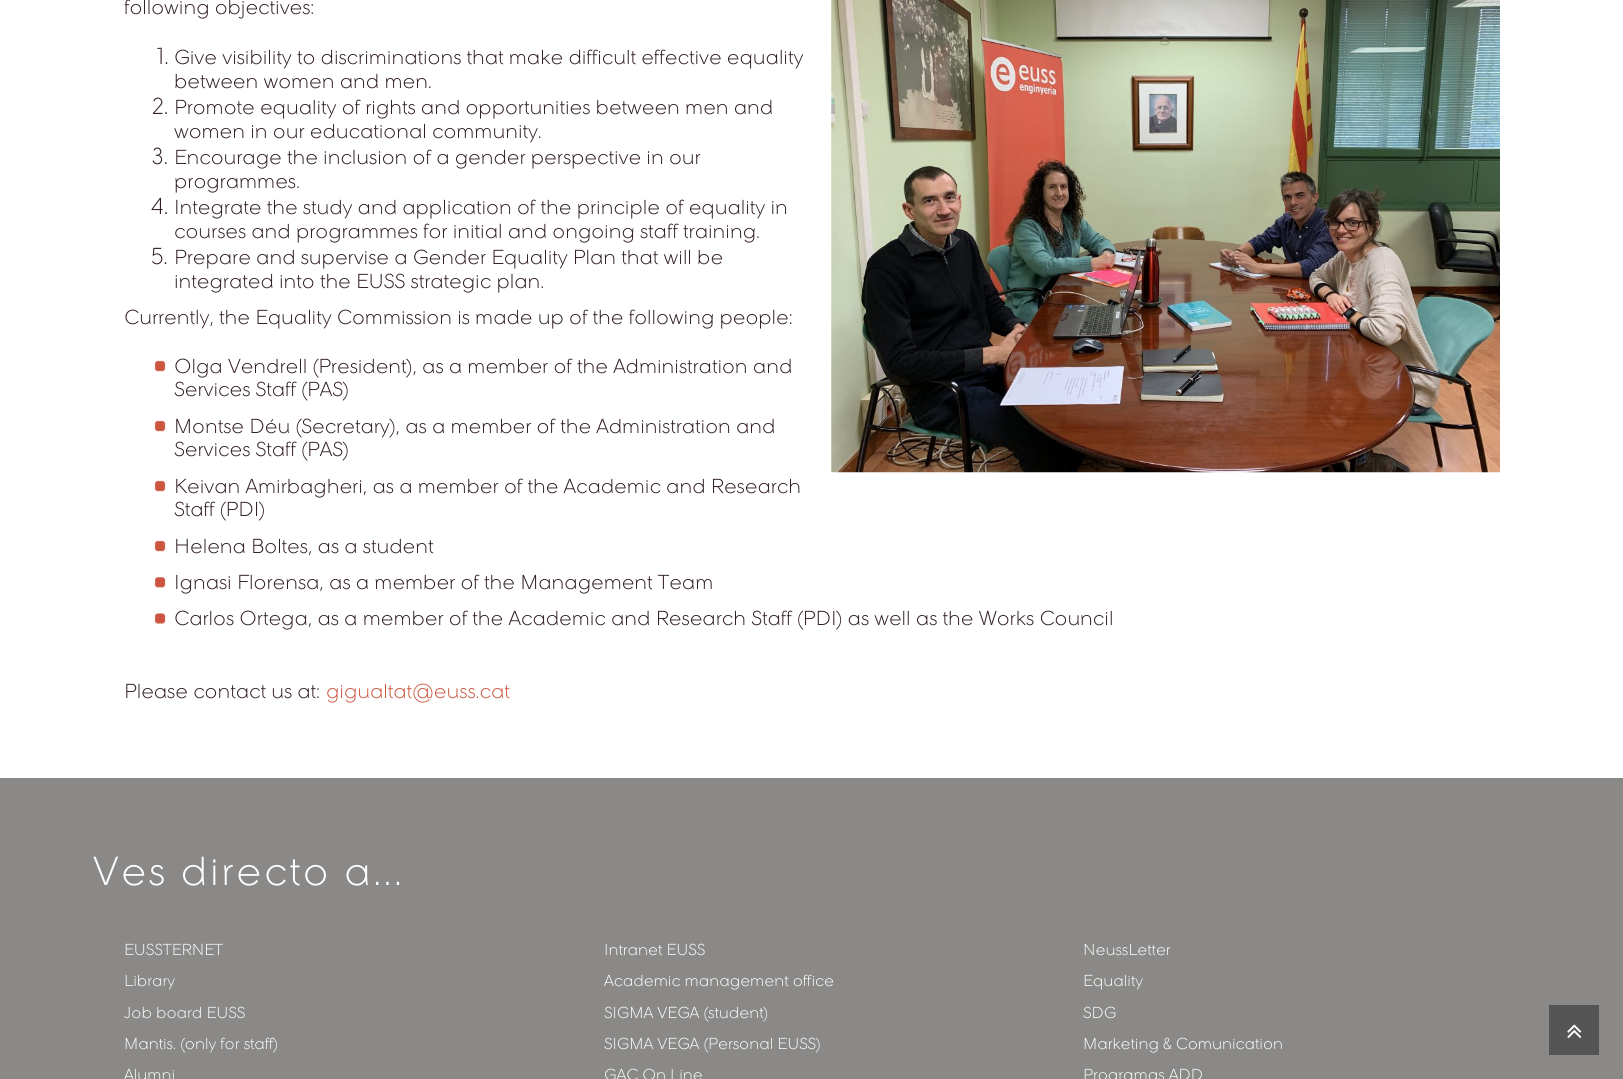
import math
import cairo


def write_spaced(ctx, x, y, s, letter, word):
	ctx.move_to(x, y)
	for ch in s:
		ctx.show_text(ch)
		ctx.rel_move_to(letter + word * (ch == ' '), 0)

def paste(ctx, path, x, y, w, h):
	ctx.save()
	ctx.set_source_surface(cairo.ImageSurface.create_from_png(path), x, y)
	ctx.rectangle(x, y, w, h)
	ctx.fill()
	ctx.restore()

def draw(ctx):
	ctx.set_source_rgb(1, 1, 1)
	ctx.paint()
	ctx.select_font_face('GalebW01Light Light')
	ctx.set_font_size(17.5)
	ctx.set_source_rgb(0.188, 0.114, 0.149)
	ctx.move_to(124, 14)
	ctx.show_text('following objectives:')
	paste(ctx, 'media/1.png', 831, 0, 669, 473)
	ctx.set_font_size(20)
	ctx.move_to(157, 64)
	ctx.show_text('1.')
	ctx.set_font_size(17.5)
	ctx.move_to(174, 64)
	ctx.show_text('Give visibility to discriminations that make difficult effective equality')
	ctx.move_to(174, 88)
	ctx.show_text('between women and men.')
	ctx.set_font_size(20)
	ctx.move_to(152, 114)
	ctx.show_text('2.')
	ctx.set_font_size(17.5)
	ctx.move_to(174, 114)
	ctx.show_text('Promote equality of rights and opportunities between men and')
	ctx.move_to(174, 138)
	ctx.show_text('women in our educational community.')
	ctx.set_font_size(20)
	ctx.move_to(152, 164)
	ctx.show_text('3.')
	ctx.set_font_size(17.5)
	ctx.move_to(174, 164)
	ctx.show_text('Encourage the inclusion of a gender perspective in our')
	ctx.move_to(174, 188)
	ctx.show_text('programmes.')
	ctx.set_font_size(20)
	ctx.move_to(151, 214)
	ctx.show_text('4.')
	ctx.set_font_size(17.5)
	ctx.move_to(174, 214)
	ctx.show_text('Integrate the study and application of the principle of equality in')
	ctx.move_to(174, 238)
	ctx.show_text('courses and programmes for initial and ongoing staff training.')
	ctx.set_font_size(20)
	ctx.move_to(151, 264)
	ctx.show_text('5.')
	ctx.set_font_size(17.5)
	for x, y, s in [
		(174, 264, 'Prepare and supervise a Gender Equality Plan that will be'),
		(174, 288, 'integrated into the EUSS strategic plan.'),
		(124, 324, 'Currently, the Equality Commission is made up of the following people:'),
	]:
		ctx.move_to(x, y)
		ctx.show_text(s)
	paste(ctx, 'media/2.png', 154, 360, 12, 12)
	ctx.move_to(174, 373)
	ctx.show_text('Olga Vendrell (President), as a member of the Administration and')
	ctx.move_to(174, 396)
	ctx.show_text('Services Staff (PAS)')
	paste(ctx, 'media/2.png', 154, 420, 12, 12)
	ctx.move_to(174, 433)
	ctx.show_text('Montse Déu (Secretary), as a member of the Administration and')
	ctx.move_to(174, 456)
	ctx.show_text('Services Staff (PAS)')
	paste(ctx, 'media/2.png', 154, 480, 12, 12)
	ctx.move_to(174, 493)
	ctx.show_text('Keivan Amirbagheri, as a member of the Academic and Research')
	ctx.move_to(174, 516)
	ctx.show_text('Staff (PDI)')
	paste(ctx, 'media/2.png', 154, 540, 12, 12)
	ctx.move_to(174, 553)
	ctx.show_text('Helena Boltes, as a student')
	paste(ctx, 'media/3.png', 154, 577, 12, 11)
	ctx.move_to(174, 589)
	ctx.show_text('Ignasi Florensa, as a member of the Management Team')
	paste(ctx, 'media/4.png', 154, 613, 12, 11)
	ctx.move_to(174, 625)
	ctx.show_text('Carlos Ortega, as a member of the Academic and Research Staff (PDI) as well as the Works Council')
	ctx.move_to(124, 698)
	ctx.show_text('Please contact us at:')
	ctx.set_source_rgb(0.796, 0.333, 0.247)
	ctx.move_to(326, 698)
	ctx.show_text('gigualtat@euss.cat')
	ctx.set_source_rgb(0.541, 0.537, 0.533)
	ctx.rectangle(0, 778, 1623, 301)
	ctx.fill()
	ctx.set_font_size(35)
	ctx.set_source_rgb(1, 1, 1)
	write_spaced(ctx, 93, 885, 'Ves directo a...', 2.5, 0)
	ctx.set_font_size(13.75)
	for x, y, s in [
		(124, 955, 'EUSSTERNET'),
		(124, 986, 'Library'),
		(124, 1018, 'Job board EUSS'),
		(124, 1049, 'Mantis. (only for staff)'),
		(124, 1080, 'Alumni'),
		(604, 955, 'Intranet EUSS'),
		(604, 986, 'Academic management office'),
		(604, 1018, 'SIGMA VEGA (student)'),
		(604, 1049, 'SIGMA VEGA (Personal EUSS)'),
		(604, 1080, 'GAC On Line'),
		(1083, 955, 'NeussLetter'),
		(1083, 986, 'Equality'),
		(1083, 1018, 'SDG'),
		(1083, 1049, 'Marketing & Comunication'),
		(1083, 1080, 'Programas ADD'),
	]:
		ctx.move_to(x, y)
		ctx.show_text(s)
	ctx.set_source_rgb(0.333, 0.333, 0.333)
	ctx.rectangle(1549, 1005, 50, 50)
	ctx.fill()
	paste(ctx, 'media/5.png', 1567, 1024, 15, 14)


surface = cairo.ImageSurface(cairo.FORMAT_RGB24, 1623, 1079)
ctx = cairo.Context(surface)
options = cairo.FontOptions()
options.set_hint_metrics(cairo.HINT_METRICS_OFF)
options.set_hint_style(cairo.HINT_STYLE_NONE)
ctx.set_font_options(options)
ctx.set_miter_limit(4)
draw(ctx)
surface.write_to_png('image.png')
